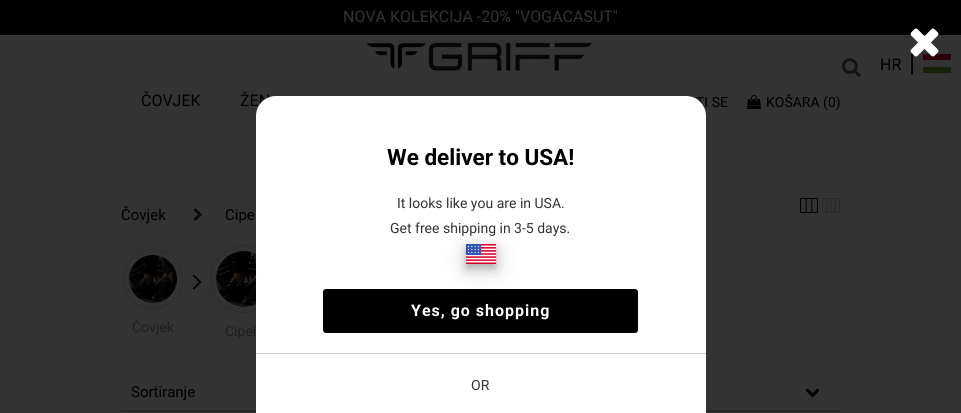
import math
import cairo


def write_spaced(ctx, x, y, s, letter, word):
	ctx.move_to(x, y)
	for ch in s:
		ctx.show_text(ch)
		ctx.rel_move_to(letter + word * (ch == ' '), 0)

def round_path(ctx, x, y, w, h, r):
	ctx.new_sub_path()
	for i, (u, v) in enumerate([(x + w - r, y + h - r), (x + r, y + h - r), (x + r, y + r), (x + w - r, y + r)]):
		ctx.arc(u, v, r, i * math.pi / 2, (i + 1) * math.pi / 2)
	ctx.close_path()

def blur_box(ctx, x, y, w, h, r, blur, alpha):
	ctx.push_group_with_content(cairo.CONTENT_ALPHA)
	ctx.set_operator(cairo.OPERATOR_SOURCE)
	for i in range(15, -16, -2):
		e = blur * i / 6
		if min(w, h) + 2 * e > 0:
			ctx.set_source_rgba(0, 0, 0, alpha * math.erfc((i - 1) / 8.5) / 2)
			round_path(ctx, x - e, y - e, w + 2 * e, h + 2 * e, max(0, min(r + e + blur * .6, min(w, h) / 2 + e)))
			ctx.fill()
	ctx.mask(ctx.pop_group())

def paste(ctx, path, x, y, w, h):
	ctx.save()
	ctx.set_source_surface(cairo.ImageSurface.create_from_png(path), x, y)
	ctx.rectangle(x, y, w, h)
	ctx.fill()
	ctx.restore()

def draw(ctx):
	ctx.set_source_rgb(0.2, 0.2, 0.2)
	ctx.paint()
	ctx.set_source_rgb(0, 0, 0)
	ctx.rectangle(0, 0, 961, 35)
	ctx.fill()
	ctx.select_font_face('Roboto')
	ctx.set_font_size(16)
	ctx.set_source_rgb(0.2, 0.2, 0.2)
	ctx.move_to(343, 22)
	ctx.show_text('NOVA KOLEKCIJA -20% "VOGACASUT"')
	paste(ctx, 'media/1.png', 366, 42, 226, 29)
	paste(ctx, 'media/2.png', 842, 58, 19, 19)
	ctx.set_source_rgb(0, 0, 0)
	ctx.move_to(880, 70)
	ctx.show_text('HR')
	ctx.set_font_size(25)
	ctx.move_to(909, 71)
	ctx.show_text('|')
	ctx.set_source_rgb(0.169, 0, 0.031)
	ctx.rectangle(923, 54, 28, 6)
	ctx.fill()
	ctx.set_source_rgb(0.086, 0.129, 0.055)
	ctx.rectangle(923, 67, 28, 6)
	ctx.fill()
	ctx.set_font_size(16)
	ctx.set_source_rgb(0, 0, 0)
	ctx.move_to(141, 106)
	ctx.show_text('ČOVJEK')
	ctx.move_to(240, 106)
	ctx.show_text('ŽEN')
	ctx.set_font_size(14)
	ctx.move_to(696, 107)
	ctx.show_text('TI SE')
	paste(ctx, 'media/3.png', 747, 95, 14, 14)
	ctx.move_to(766, 107)
	ctx.show_text('KOŠARA (0)')
	ctx.set_font_size(15)
	ctx.move_to(121, 220)
	ctx.show_text('Čovjek')
	paste(ctx, 'media/4.png', 193, 208, 9, 13)
	ctx.move_to(225, 220)
	ctx.show_text('Cipe')
	paste(ctx, 'media/5.png', 800, 198, 18, 15)
	paste(ctx, 'media/6.png', 822, 198, 18, 15)
	paste(ctx, 'media/7.png', 192, 274, 10, 16)
	ctx.arc(153, 279, 29.5, 0, 2 * math.pi)
	ctx.set_source_rgb(0.173, 0.173, 0.173)
	ctx.set_line_width(1)
	ctx.stroke()
	paste(ctx, 'media/8.png', 129, 255, 48, 48)
	ctx.set_font_size(14)
	ctx.set_source_rgb(0.118, 0.118, 0.118)
	ctx.move_to(132, 332)
	ctx.show_text('Čovjek')
	ctx.new_path()
	ctx.arc(244, 279, 33.5, 0, 2 * math.pi)
	ctx.set_source_rgb(0.173, 0.173, 0.173)
	ctx.stroke()
	paste(ctx, 'media/9.png', 216, 251, 40, 56)
	ctx.set_source_rgb(0.118, 0.118, 0.118)
	ctx.move_to(225, 336)
	ctx.show_text('Cipel')
	ctx.set_source_rgb(0.161, 0.161, 0.161)
	ctx.rectangle(121, 410, 720, 2)
	ctx.fill()
	ctx.set_font_size(15)
	ctx.set_source_rgb(0, 0, 0)
	ctx.move_to(131, 397)
	ctx.show_text('Sortiranje')
	paste(ctx, 'media/10.png', 805, 388, 15, 10)
	paste(ctx, 'media/11.png', 910, 28, 29, 29)
	ctx.set_source_rgb(1, 1, 1)
	round_path(ctx, 256, 96, 450, 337, 20)
	ctx.fill()
	ctx.select_font_face('Roboto', cairo.FONT_SLANT_NORMAL, cairo.FONT_WEIGHT_BOLD)
	ctx.set_font_size(22.5)
	ctx.set_source_rgb(0, 0, 0)
	ctx.move_to(387, 165)
	ctx.show_text('We deliver to USA!')
	ctx.select_font_face('Roboto')
	ctx.set_font_size(14)
	ctx.set_source_rgb(0.2, 0.2, 0.2)
	ctx.move_to(397, 208)
	ctx.show_text('It looks like you are in USA.')
	ctx.set_source_rgb(0, 0, 0)
	blur_box(ctx, 466, 250, 30, 20, 0, 10, 0.19)
	blur_box(ctx, 466, 248, 30, 20, 0, 4, 0.2)
	paste(ctx, 'media/12.png', 466, 244, 30, 20)
	ctx.set_source_rgb(0.2, 0.2, 0.2)
	ctx.move_to(390, 233)
	ctx.show_text('Get free shipping in 3-5 days.')
	ctx.set_source_rgb(0, 0, 0)
	round_path(ctx, 323, 289, 315, 44, 3)
	ctx.fill()
	ctx.select_font_face('Roboto', cairo.FONT_SLANT_NORMAL, cairo.FONT_WEIGHT_BOLD)
	ctx.set_font_size(16)
	ctx.set_source_rgb(1, 1, 1)
	write_spaced(ctx, 411, 316, 'Yes, go shopping', 1, 0)
	ctx.set_source_rgb(0.8, 0.8, 0.8)
	ctx.rectangle(256, 353, 450, 1)
	ctx.fill()
	ctx.select_font_face('Roboto')
	ctx.set_font_size(14)
	ctx.set_source_rgb(0.2, 0.2, 0.2)
	ctx.move_to(471, 390)
	ctx.show_text('OR')


surface = cairo.ImageSurface(cairo.FORMAT_RGB24, 961, 413)
ctx = cairo.Context(surface)
options = cairo.FontOptions()
options.set_hint_metrics(cairo.HINT_METRICS_OFF)
options.set_hint_style(cairo.HINT_STYLE_NONE)
ctx.set_font_options(options)
ctx.set_miter_limit(4)
draw(ctx)
surface.write_to_png('image.png')
